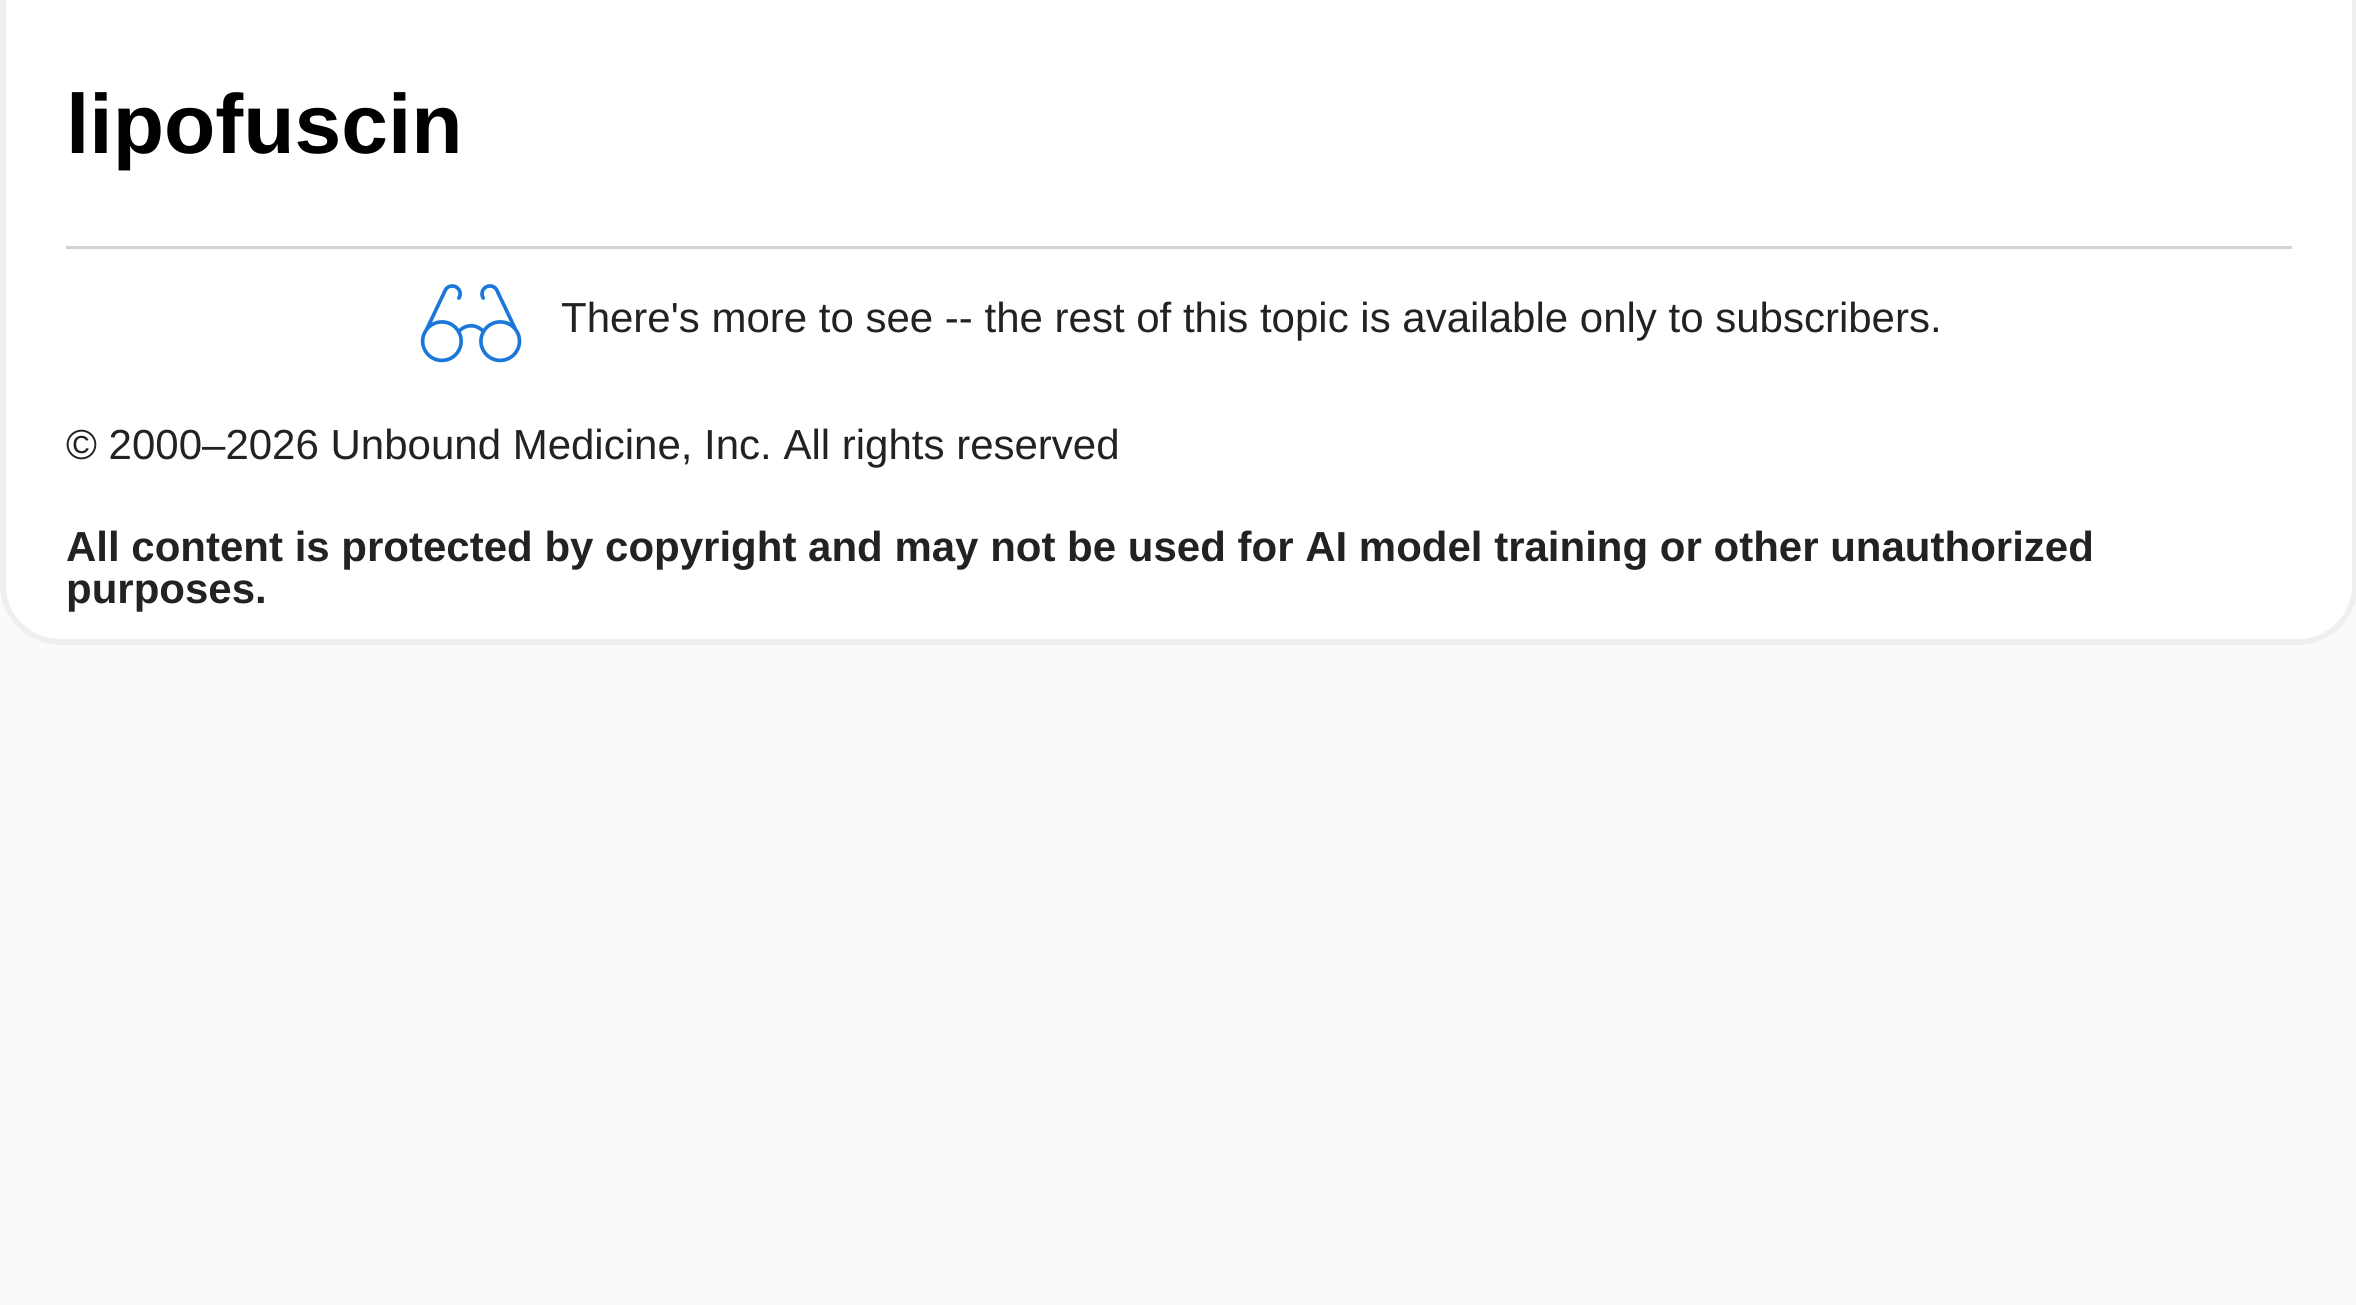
import math
import cairo


def paste(ctx, path, x, y, w, h):
	ctx.save()
	ctx.set_source_surface(cairo.ImageSurface.create_from_png(path), x, y)
	ctx.rectangle(x, y, w, h)
	ctx.fill()
	ctx.restore()

def draw(ctx):
	ctx.set_source_rgb(0.98, 0.98, 0.98)
	ctx.paint()
	ctx.set_source_rgb(1, 1, 1)
	ctx.new_path()
	ctx.move_to(0, 0)
	ctx.line_to(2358, 0)
	ctx.line_to(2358, 585)
	ctx.curve_to(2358, 618, 2331, 645, 2298, 645)
	ctx.line_to(60, 645)
	ctx.curve_to(27, 645, 0, 618, 0, 585)
	ctx.close_path()
	ctx.fill()
	ctx.set_source_rgb(0.937, 0.937, 0.937)
	ctx.set_fill_rule(cairo.FILL_RULE_EVEN_ODD)
	ctx.new_path()
	ctx.move_to(0, 0)
	ctx.line_to(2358, 0)
	ctx.line_to(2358, 585)
	ctx.curve_to(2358, 618, 2331, 645, 2298, 645)
	ctx.line_to(60, 645)
	ctx.curve_to(27, 645, 0, 618, 0, 585)
	ctx.close_path()
	ctx.move_to(6, 0)
	ctx.line_to(2352, 0)
	ctx.line_to(2352, 585)
	ctx.curve_to(2352, 615, 2328, 639, 2298, 639)
	ctx.line_to(60, 639)
	ctx.curve_to(30, 639, 6, 615, 6, 585)
	ctx.close_path()
	ctx.fill()
	ctx.select_font_face('Liberation Sans', cairo.FONT_SLANT_NORMAL, cairo.FONT_WEIGHT_BOLD)
	ctx.set_font_size(84)
	ctx.set_source_rgb(0, 0, 0)
	ctx.move_to(66, 153)
	ctx.show_text('lipofuscin')
	ctx.set_source_rgb(0.827, 0.827, 0.827)
	ctx.rectangle(66, 246, 2226, 3)
	ctx.fill()
	paste(ctx, 'media/1.png', 420, 284, 102, 79)
	ctx.select_font_face('Liberation Sans')
	ctx.set_font_size(42)
	ctx.set_source_rgb(0.133, 0.133, 0.133)
	ctx.move_to(561, 332)
	ctx.show_text('There\'s more to see -- the rest of this topic is available only to subscribers.')
	ctx.move_to(66, 459)
	ctx.show_text('© 2000–2026 Unbound Medicine, Inc. All rights reserved')
	ctx.select_font_face('Liberation Sans', cairo.FONT_SLANT_NORMAL, cairo.FONT_WEIGHT_BOLD)
	ctx.move_to(66, 561)
	ctx.show_text('All content is protected by copyright and may not be used for AI model training or other unauthorized')
	ctx.move_to(66, 603)
	ctx.show_text('purposes.')


surface = cairo.ImageSurface(cairo.FORMAT_RGB24, 2356, 1305)
ctx = cairo.Context(surface)
options = cairo.FontOptions()
options.set_hint_metrics(cairo.HINT_METRICS_OFF)
options.set_hint_style(cairo.HINT_STYLE_NONE)
ctx.set_font_options(options)
ctx.set_miter_limit(4)
draw(ctx)
surface.write_to_png('image.png')
